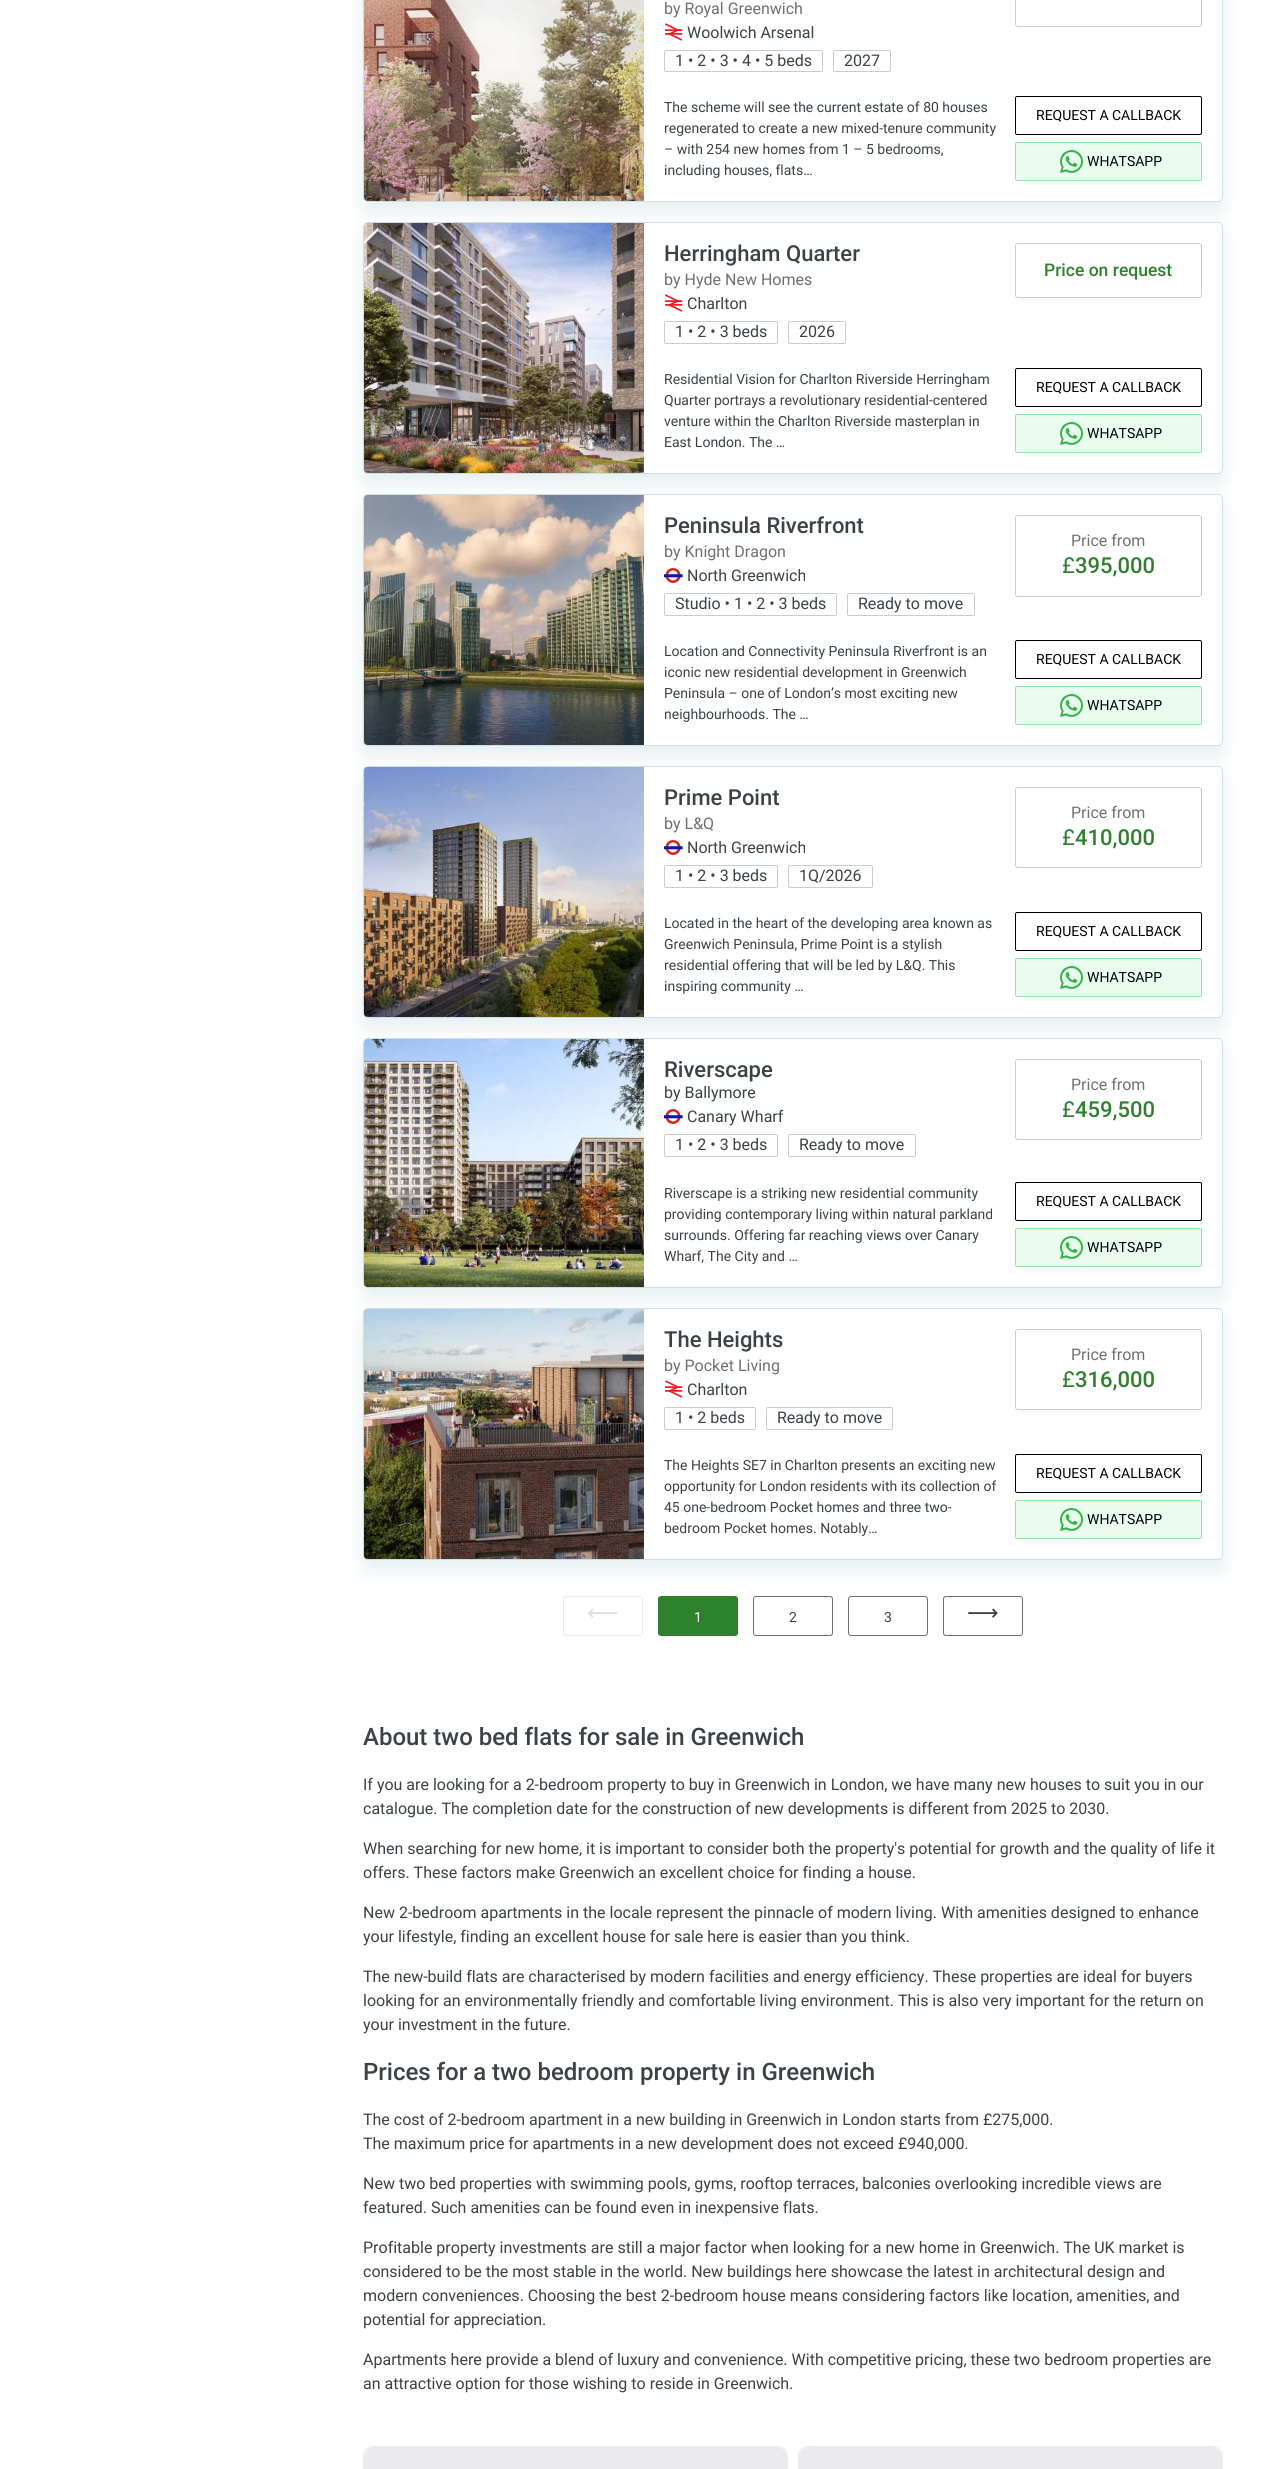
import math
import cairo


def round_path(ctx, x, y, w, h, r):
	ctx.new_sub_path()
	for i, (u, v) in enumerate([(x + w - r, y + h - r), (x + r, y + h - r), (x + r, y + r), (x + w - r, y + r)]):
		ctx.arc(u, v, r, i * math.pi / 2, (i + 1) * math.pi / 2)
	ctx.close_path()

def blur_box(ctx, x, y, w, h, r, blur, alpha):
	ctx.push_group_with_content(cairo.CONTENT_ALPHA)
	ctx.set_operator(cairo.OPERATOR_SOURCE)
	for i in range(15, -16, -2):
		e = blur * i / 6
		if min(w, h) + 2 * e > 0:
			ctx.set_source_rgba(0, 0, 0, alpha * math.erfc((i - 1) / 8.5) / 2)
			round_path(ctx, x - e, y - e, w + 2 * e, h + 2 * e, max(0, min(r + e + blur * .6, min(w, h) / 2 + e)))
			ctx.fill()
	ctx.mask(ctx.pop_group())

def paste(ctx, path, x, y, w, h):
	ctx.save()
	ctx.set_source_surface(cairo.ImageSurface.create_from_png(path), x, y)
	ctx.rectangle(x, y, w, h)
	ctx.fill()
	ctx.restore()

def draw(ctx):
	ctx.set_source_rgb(1, 1, 1)
	ctx.paint()
	ctx.set_source_rgb(0.58, 0.733, 0.776)
	blur_box(ctx, 363, -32, 860, 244, 5, 9, 0.24)
	ctx.set_source_rgb(1, 1, 1)
	round_path(ctx, 363.5, -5.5, 859, 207, 4.5)
	ctx.fill_preserve()
	ctx.set_source_rgb(0.812, 0.875, 0.89)
	ctx.set_line_width(1)
	ctx.stroke()
	paste(ctx, 'media/1.png', 364, 0, 280, 201)
	ctx.select_font_face('Roboto')
	ctx.set_font_size(16)
	ctx.set_source_rgb(0.435, 0.435, 0.435)
	ctx.move_to(664, 14)
	ctx.show_text('by Royal Greenwich')
	paste(ctx, 'media/2.png', 665, 23, 18, 18)
	ctx.set_source_rgb(0.231, 0.255, 0.267)
	ctx.move_to(687, 38)
	ctx.show_text('Woolwich Arsenal')
	round_path(ctx, 664.5, 50.5, 158, 21, 1.5)
	ctx.set_source_rgb(0.8, 0.8, 0.8)
	ctx.stroke()
	ctx.set_source_rgb(0.231, 0.255, 0.267)
	ctx.move_to(675, 66)
	ctx.show_text('1 • 2 • 3 • 4 • 5 beds')
	round_path(ctx, 833.5, 50.5, 57, 21, 1.5)
	ctx.set_source_rgb(0.8, 0.8, 0.8)
	ctx.stroke()
	ctx.set_source_rgb(0.231, 0.255, 0.267)
	ctx.move_to(844, 66)
	ctx.show_text('2027')
	ctx.set_font_size(14)
	for x, y, s in [
		(664, 112, 'The scheme will see the current estate of 80 houses'),
		(664, 133, 'regenerated to create a new mixed-tenure community'),
		(664, 154, '– with 254 new homes from 1 – 5 bedrooms,'),
		(664, 175, 'including houses, flats…'),
	]:
		ctx.move_to(x, y)
		ctx.show_text(s)
	round_path(ctx, 1015.5, -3.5, 186, 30, 2.5)
	ctx.set_source_rgb(0.8, 0.8, 0.8)
	ctx.stroke()
	round_path(ctx, 1015.5, 96.5, 186, 38, 1.5)
	ctx.set_source_rgb(0, 0, 0)
	ctx.stroke()
	ctx.move_to(1036, 120)
	ctx.show_text('REQUEST A CALLBACK')
	ctx.set_source_rgb(0.918, 0.984, 0.941)
	round_path(ctx, 1015.5, 142.5, 186, 38, 1.5)
	ctx.fill_preserve()
	ctx.set_source_rgb(0.565, 0.933, 0.565)
	ctx.stroke()
	paste(ctx, 'media/3.png', 1060, 150, 23, 23)
	ctx.set_source_rgb(0, 0, 0)
	ctx.move_to(1087, 166)
	ctx.show_text('WHATSAPP')
	ctx.set_source_rgb(0.58, 0.733, 0.776)
	blur_box(ctx, 363, 232, 860, 252, 5, 9, 0.24)
	ctx.set_source_rgb(1, 1, 1)
	round_path(ctx, 363.5, 222.5, 859, 251, 4.5)
	ctx.fill_preserve()
	ctx.set_source_rgb(0.812, 0.875, 0.89)
	ctx.stroke()
	paste(ctx, 'media/4.png', 364, 223, 280, 250)
	ctx.select_font_face('Roboto Medium')
	ctx.set_font_size(22)
	ctx.set_source_rgb(0.231, 0.255, 0.267)
	ctx.move_to(664, 261)
	ctx.show_text('Herringham Quarter')
	ctx.select_font_face('Roboto')
	ctx.set_font_size(16)
	ctx.set_source_rgb(0.435, 0.435, 0.435)
	ctx.move_to(664, 285)
	ctx.show_text('by Hyde New Homes')
	paste(ctx, 'media/2.png', 665, 294, 18, 18)
	ctx.set_source_rgb(0.231, 0.255, 0.267)
	ctx.move_to(687, 309)
	ctx.show_text('Charlton')
	round_path(ctx, 664.5, 321.5, 113, 22, 1.5)
	ctx.set_source_rgb(0.8, 0.8, 0.8)
	ctx.stroke()
	ctx.set_source_rgb(0.231, 0.255, 0.267)
	ctx.move_to(675, 337)
	ctx.show_text('1 • 2 • 3 beds')
	round_path(ctx, 788.5, 321.5, 57, 22, 1.5)
	ctx.set_source_rgb(0.8, 0.8, 0.8)
	ctx.stroke()
	ctx.set_source_rgb(0.231, 0.255, 0.267)
	ctx.move_to(799, 337)
	ctx.show_text('2026')
	ctx.set_font_size(14)
	for x, y, s in [
		(664, 384, 'Residential Vision for Charlton Riverside Herringham'),
		(664, 405, 'Quarter portrays a revolutionary residential-centered'),
		(664, 426, 'venture within the Charlton Riverside masterplan in'),
		(664, 447, 'East London. The …'),
	]:
		ctx.move_to(x, y)
		ctx.show_text(s)
	round_path(ctx, 1015.5, 243.5, 186, 54, 2.5)
	ctx.set_source_rgb(0.8, 0.8, 0.8)
	ctx.stroke()
	ctx.select_font_face('Roboto Medium')
	ctx.set_font_size(17.5)
	ctx.set_source_rgb(0.176, 0.506, 0.176)
	ctx.move_to(1044, 276)
	ctx.show_text('Price on request')
	round_path(ctx, 1015.5, 368.5, 186, 38, 1.5)
	ctx.set_source_rgb(0, 0, 0)
	ctx.stroke()
	ctx.select_font_face('Roboto')
	ctx.set_font_size(14)
	ctx.move_to(1036, 392)
	ctx.show_text('REQUEST A CALLBACK')
	ctx.set_source_rgb(0.918, 0.984, 0.941)
	round_path(ctx, 1015.5, 414.5, 186, 38, 1.5)
	ctx.fill_preserve()
	ctx.set_source_rgb(0.565, 0.933, 0.565)
	ctx.stroke()
	paste(ctx, 'media/3.png', 1060, 422, 23, 23)
	ctx.set_source_rgb(0, 0, 0)
	ctx.move_to(1087, 438)
	ctx.show_text('WHATSAPP')
	ctx.set_source_rgb(0.58, 0.733, 0.776)
	blur_box(ctx, 363, 504, 860, 252, 5, 9, 0.24)
	ctx.set_source_rgb(1, 1, 1)
	round_path(ctx, 363.5, 494.5, 859, 251, 4.5)
	ctx.fill_preserve()
	ctx.set_source_rgb(0.812, 0.875, 0.89)
	ctx.stroke()
	paste(ctx, 'media/5.png', 364, 495, 280, 250)
	ctx.select_font_face('Roboto Medium')
	ctx.set_font_size(22)
	ctx.set_source_rgb(0.231, 0.255, 0.267)
	ctx.move_to(664, 533)
	ctx.show_text('Peninsula Riverfront')
	ctx.select_font_face('Roboto')
	ctx.set_font_size(16)
	ctx.set_source_rgb(0.435, 0.435, 0.435)
	ctx.move_to(664, 557)
	ctx.show_text('by Knight Dragon')
	paste(ctx, 'media/6.png', 664, 568, 19, 15)
	ctx.set_source_rgb(0.231, 0.255, 0.267)
	ctx.move_to(687, 581)
	ctx.show_text('North Greenwich')
	round_path(ctx, 664.5, 593.5, 172, 22, 1.5)
	ctx.set_source_rgb(0.8, 0.8, 0.8)
	ctx.stroke()
	ctx.set_source_rgb(0.231, 0.255, 0.267)
	ctx.move_to(675, 609)
	ctx.show_text('Studio • 1 • 2 • 3 beds')
	round_path(ctx, 847.5, 593.5, 127, 22, 1.5)
	ctx.set_source_rgb(0.8, 0.8, 0.8)
	ctx.stroke()
	ctx.set_source_rgb(0.231, 0.255, 0.267)
	ctx.move_to(858, 609)
	ctx.show_text('Ready to move')
	ctx.set_font_size(14)
	for x, y, s in [
		(664, 656, 'Location and Connectivity Peninsula Riverfront is an'),
		(664, 677, 'iconic new residential development in Greenwich'),
		(664, 698, 'Peninsula – one of London’s most exciting new'),
		(664, 719, 'neighbourhoods. The …'),
	]:
		ctx.move_to(x, y)
		ctx.show_text(s)
	round_path(ctx, 1015.5, 515.5, 186, 81, 2.5)
	ctx.set_source_rgb(0.8, 0.8, 0.8)
	ctx.stroke()
	ctx.set_font_size(16)
	ctx.set_source_rgb(0.435, 0.435, 0.435)
	ctx.move_to(1071, 546)
	ctx.show_text('Price from')
	ctx.set_font_size(22)
	ctx.set_source_rgb(0.176, 0.506, 0.176)
	ctx.move_to(1062, 573)
	ctx.show_text('£')
	ctx.select_font_face('Roboto Medium')
	ctx.move_to(1075, 573)
	ctx.show_text('395,000')
	round_path(ctx, 1015.5, 640.5, 186, 38, 1.5)
	ctx.set_source_rgb(0, 0, 0)
	ctx.stroke()
	ctx.select_font_face('Roboto')
	ctx.set_font_size(14)
	ctx.move_to(1036, 664)
	ctx.show_text('REQUEST A CALLBACK')
	ctx.set_source_rgb(0.918, 0.984, 0.941)
	round_path(ctx, 1015.5, 686.5, 186, 38, 1.5)
	ctx.fill_preserve()
	ctx.set_source_rgb(0.565, 0.933, 0.565)
	ctx.stroke()
	paste(ctx, 'media/3.png', 1060, 694, 23, 23)
	ctx.set_source_rgb(0, 0, 0)
	ctx.move_to(1087, 710)
	ctx.show_text('WHATSAPP')
	ctx.set_source_rgb(0.58, 0.733, 0.776)
	blur_box(ctx, 363, 776, 860, 252, 5, 9, 0.24)
	ctx.set_source_rgb(1, 1, 1)
	round_path(ctx, 363.5, 766.5, 859, 251, 4.5)
	ctx.fill_preserve()
	ctx.set_source_rgb(0.812, 0.875, 0.89)
	ctx.stroke()
	paste(ctx, 'media/7.png', 364, 767, 280, 250)
	ctx.select_font_face('Roboto Medium')
	ctx.set_font_size(22)
	ctx.set_source_rgb(0.231, 0.255, 0.267)
	ctx.move_to(664, 805)
	ctx.show_text('Prime Point')
	ctx.select_font_face('Roboto')
	ctx.set_font_size(16)
	ctx.set_source_rgb(0.435, 0.435, 0.435)
	ctx.move_to(664, 829)
	ctx.show_text('by L&Q')
	paste(ctx, 'media/6.png', 664, 840, 19, 15)
	ctx.set_source_rgb(0.231, 0.255, 0.267)
	ctx.move_to(687, 853)
	ctx.show_text('North Greenwich')
	round_path(ctx, 664.5, 865.5, 113, 22, 1.5)
	ctx.set_source_rgb(0.8, 0.8, 0.8)
	ctx.stroke()
	ctx.set_source_rgb(0.231, 0.255, 0.267)
	ctx.move_to(675, 881)
	ctx.show_text('1 • 2 • 3 beds')
	round_path(ctx, 788.5, 865.5, 84, 22, 1.5)
	ctx.set_source_rgb(0.8, 0.8, 0.8)
	ctx.stroke()
	ctx.set_source_rgb(0.231, 0.255, 0.267)
	ctx.move_to(799, 881)
	ctx.show_text('1Q/2026')
	ctx.set_font_size(14)
	for x, y, s in [
		(664, 928, 'Located in the heart of the developing area known as'),
		(664, 949, 'Greenwich Peninsula, Prime Point is a stylish'),
		(664, 970, 'residential offering that will be led by L&Q. This'),
		(664, 991, 'inspiring community …'),
	]:
		ctx.move_to(x, y)
		ctx.show_text(s)
	round_path(ctx, 1015.5, 787.5, 186, 80, 2.5)
	ctx.set_source_rgb(0.8, 0.8, 0.8)
	ctx.stroke()
	ctx.set_font_size(16)
	ctx.set_source_rgb(0.435, 0.435, 0.435)
	ctx.move_to(1071, 818)
	ctx.show_text('Price from')
	ctx.set_font_size(22)
	ctx.set_source_rgb(0.176, 0.506, 0.176)
	ctx.move_to(1062, 845)
	ctx.show_text('£')
	ctx.select_font_face('Roboto Medium')
	ctx.move_to(1075, 845)
	ctx.show_text('410,000')
	round_path(ctx, 1015.5, 912.5, 186, 38, 1.5)
	ctx.set_source_rgb(0, 0, 0)
	ctx.stroke()
	ctx.select_font_face('Roboto')
	ctx.set_font_size(14)
	ctx.move_to(1036, 936)
	ctx.show_text('REQUEST A CALLBACK')
	ctx.set_source_rgb(0.918, 0.984, 0.941)
	round_path(ctx, 1015.5, 958.5, 186, 38, 1.5)
	ctx.fill_preserve()
	ctx.set_source_rgb(0.565, 0.933, 0.565)
	ctx.stroke()
	paste(ctx, 'media/3.png', 1060, 966, 23, 23)
	ctx.set_source_rgb(0, 0, 0)
	ctx.move_to(1087, 982)
	ctx.show_text('WHATSAPP')
	ctx.set_source_rgb(0.58, 0.733, 0.776)
	blur_box(ctx, 363, 1048, 860, 250, 5, 9, 0.24)
	ctx.set_source_rgb(1, 1, 1)
	round_path(ctx, 363.5, 1038.5, 859, 249, 4.5)
	ctx.fill_preserve()
	ctx.set_source_rgb(0.812, 0.875, 0.89)
	ctx.stroke()
	paste(ctx, 'media/8.png', 364, 1039, 280, 248)
	ctx.select_font_face('Roboto Medium')
	ctx.set_font_size(22)
	ctx.set_source_rgb(0.231, 0.255, 0.267)
	ctx.move_to(664, 1077)
	ctx.show_text('Riverscape')
	ctx.select_font_face('Roboto')
	ctx.set_font_size(16)
	ctx.move_to(664, 1098)
	ctx.show_text('by Ballymore')
	paste(ctx, 'media/6.png', 664, 1109, 19, 15)
	ctx.move_to(687, 1122)
	ctx.show_text('Canary Wharf')
	round_path(ctx, 664.5, 1134.5, 113, 22, 1.5)
	ctx.set_source_rgb(0.8, 0.8, 0.8)
	ctx.stroke()
	ctx.set_source_rgb(0.231, 0.255, 0.267)
	ctx.move_to(675, 1150)
	ctx.show_text('1 • 2 • 3 beds')
	round_path(ctx, 788.5, 1134.5, 127, 22, 1.5)
	ctx.set_source_rgb(0.8, 0.8, 0.8)
	ctx.stroke()
	ctx.set_source_rgb(0.231, 0.255, 0.267)
	ctx.move_to(799, 1150)
	ctx.show_text('Ready to move')
	ctx.set_font_size(14)
	for x, y, s in [
		(664, 1198, 'Riverscape is a striking new residential community'),
		(664, 1219, 'providing contemporary living within natural parkland'),
		(664, 1240, 'surrounds. Offering far reaching views over Canary'),
		(664, 1261, 'Wharf, The City and …'),
	]:
		ctx.move_to(x, y)
		ctx.show_text(s)
	round_path(ctx, 1015.5, 1059.5, 186, 80, 2.5)
	ctx.set_source_rgb(0.8, 0.8, 0.8)
	ctx.stroke()
	ctx.set_font_size(16)
	ctx.set_source_rgb(0.435, 0.435, 0.435)
	ctx.move_to(1071, 1090)
	ctx.show_text('Price from')
	ctx.set_font_size(22)
	ctx.set_source_rgb(0.176, 0.506, 0.176)
	ctx.move_to(1062, 1117)
	ctx.show_text('£')
	ctx.select_font_face('Roboto Medium')
	ctx.move_to(1075, 1117)
	ctx.show_text('459,500')
	round_path(ctx, 1015.5, 1182.5, 186, 38, 1.5)
	ctx.set_source_rgb(0, 0, 0)
	ctx.stroke()
	ctx.select_font_face('Roboto')
	ctx.set_font_size(14)
	ctx.move_to(1036, 1206)
	ctx.show_text('REQUEST A CALLBACK')
	ctx.set_source_rgb(0.918, 0.984, 0.941)
	round_path(ctx, 1015.5, 1228.5, 186, 38, 1.5)
	ctx.fill_preserve()
	ctx.set_source_rgb(0.565, 0.933, 0.565)
	ctx.stroke()
	paste(ctx, 'media/3.png', 1060, 1236, 23, 23)
	ctx.set_source_rgb(0, 0, 0)
	ctx.move_to(1087, 1252)
	ctx.show_text('WHATSAPP')
	ctx.set_source_rgb(0.58, 0.733, 0.776)
	blur_box(ctx, 363, 1318, 860, 252, 5, 9, 0.24)
	ctx.set_source_rgb(1, 1, 1)
	round_path(ctx, 363.5, 1308.5, 859, 251, 4.5)
	ctx.fill_preserve()
	ctx.set_source_rgb(0.812, 0.875, 0.89)
	ctx.stroke()
	paste(ctx, 'media/9.png', 364, 1309, 280, 250)
	ctx.select_font_face('Roboto Medium')
	ctx.set_font_size(22)
	ctx.set_source_rgb(0.231, 0.255, 0.267)
	ctx.move_to(664, 1347)
	ctx.show_text('The Heights')
	ctx.select_font_face('Roboto')
	ctx.set_font_size(16)
	ctx.set_source_rgb(0.435, 0.435, 0.435)
	ctx.move_to(664, 1371)
	ctx.show_text('by Pocket Living')
	paste(ctx, 'media/2.png', 665, 1380, 18, 18)
	ctx.set_source_rgb(0.231, 0.255, 0.267)
	ctx.move_to(687, 1395)
	ctx.show_text('Charlton')
	round_path(ctx, 664.5, 1407.5, 91, 22, 1.5)
	ctx.set_source_rgb(0.8, 0.8, 0.8)
	ctx.stroke()
	ctx.set_source_rgb(0.231, 0.255, 0.267)
	ctx.move_to(675, 1423)
	ctx.show_text('1 • 2 beds')
	round_path(ctx, 766.5, 1407.5, 126, 22, 1.5)
	ctx.set_source_rgb(0.8, 0.8, 0.8)
	ctx.stroke()
	ctx.set_source_rgb(0.231, 0.255, 0.267)
	ctx.move_to(777, 1423)
	ctx.show_text('Ready to move')
	ctx.set_font_size(14)
	for x, y, s in [
		(664, 1470, 'The Heights SE7 in Charlton presents an exciting new'),
		(664, 1491, 'opportunity for London residents with its collection of'),
		(664, 1512, '45 one-bedroom Pocket homes and three two-'),
		(664, 1533, 'bedroom Pocket homes. Notably…'),
	]:
		ctx.move_to(x, y)
		ctx.show_text(s)
	round_path(ctx, 1015.5, 1329.5, 186, 80, 2.5)
	ctx.set_source_rgb(0.8, 0.8, 0.8)
	ctx.stroke()
	ctx.set_font_size(16)
	ctx.set_source_rgb(0.435, 0.435, 0.435)
	ctx.move_to(1071, 1360)
	ctx.show_text('Price from')
	ctx.set_font_size(22)
	ctx.set_source_rgb(0.176, 0.506, 0.176)
	ctx.move_to(1062, 1387)
	ctx.show_text('£')
	ctx.select_font_face('Roboto Medium')
	ctx.move_to(1075, 1387)
	ctx.show_text('316,000')
	round_path(ctx, 1015.5, 1454.5, 186, 38, 1.5)
	ctx.set_source_rgb(0, 0, 0)
	ctx.stroke()
	ctx.select_font_face('Roboto')
	ctx.set_font_size(14)
	ctx.move_to(1036, 1478)
	ctx.show_text('REQUEST A CALLBACK')
	ctx.set_source_rgb(0.918, 0.984, 0.941)
	round_path(ctx, 1015.5, 1500.5, 186, 38, 1.5)
	ctx.fill_preserve()
	ctx.set_source_rgb(0.565, 0.933, 0.565)
	ctx.stroke()
	paste(ctx, 'media/3.png', 1060, 1508, 23, 23)
	ctx.set_source_rgb(0, 0, 0)
	ctx.move_to(1087, 1524)
	ctx.show_text('WHATSAPP')
	round_path(ctx, 563.5, 1596.5, 79, 39, 2.5)
	ctx.set_source_rgb(0.918, 0.918, 0.929)
	ctx.stroke()
	ctx.select_font_face('DejaVu Sans')
	ctx.set_font_size(22)
	ctx.set_source_rgb(0.875, 0.875, 0.875)
	ctx.move_to(587, 1620)
	ctx.show_text('⟵')
	ctx.set_source_rgb(0.176, 0.506, 0.176)
	round_path(ctx, 658.5, 1596.5, 79, 39, 2.5)
	ctx.fill_preserve()
	ctx.stroke()
	ctx.select_font_face('Roboto')
	ctx.set_font_size(14)
	ctx.set_source_rgb(1, 1, 1)
	ctx.move_to(694, 1622)
	ctx.show_text('1')
	round_path(ctx, 753.5, 1596.5, 79, 39, 2.5)
	ctx.set_source_rgb(0.435, 0.435, 0.435)
	ctx.stroke()
	ctx.set_source_rgb(0.231, 0.255, 0.267)
	ctx.move_to(789, 1622)
	ctx.show_text('2')
	round_path(ctx, 848.5, 1596.5, 79, 39, 2.5)
	ctx.set_source_rgb(0.435, 0.435, 0.435)
	ctx.stroke()
	ctx.set_source_rgb(0.231, 0.255, 0.267)
	ctx.move_to(884, 1622)
	ctx.show_text('3')
	round_path(ctx, 943.5, 1596.5, 79, 39, 2.5)
	ctx.set_source_rgb(0.435, 0.435, 0.435)
	ctx.stroke()
	ctx.select_font_face('DejaVu Sans')
	ctx.set_font_size(22)
	ctx.set_source_rgb(0.231, 0.255, 0.267)
	ctx.move_to(967, 1620)
	ctx.show_text('⟶')
	ctx.select_font_face('Roboto Medium')
	ctx.set_font_size(24)
	ctx.move_to(363, 1745)
	ctx.show_text('About two bed flats for sale in Greenwich')
	ctx.select_font_face('Roboto')
	ctx.set_font_size(16)
	for x, y, s in [
		(363, 1790, 'If you are looking for a 2-bedroom property to buy in Greenwich in London, we have many new houses to suit you in our'),
		(363, 1814, 'catalogue. The completion date for the construction of new developments is different from 2025 to 2030.'),
		(363, 1854, 'When searching for new home, it is important to consider both the property\'s potential for growth and the quality of life it'),
		(363, 1878, 'offers. These factors make Greenwich an excellent choice for finding a house.'),
		(363, 1918, 'New 2-bedroom apartments in the locale represent the pinnacle of modern living. With amenities designed to enhance'),
		(363, 1942, 'your lifestyle, finding an excellent house for sale here is easier than you think.'),
		(363, 1982, 'The new-build flats are characterised by modern facilities and energy efficiency. These properties are ideal for buyers'),
		(363, 2006, 'looking for an environmentally friendly and comfortable living environment. This is also very important for the return on'),
		(363, 2030, 'your investment in the future.'),
	]:
		ctx.move_to(x, y)
		ctx.show_text(s)
	ctx.select_font_face('Roboto Medium')
	ctx.set_font_size(24)
	ctx.move_to(363, 2080)
	ctx.show_text('Prices for a two bedroom property in Greenwich')
	ctx.select_font_face('Roboto')
	ctx.set_font_size(16)
	for x, y, s in [
		(363, 2125, 'The cost of 2-bedroom apartment in a new building in Greenwich in London starts from £275,000.'),
		(363, 2149, 'The maximum price for apartments in a new development does not exceed £940,000.'),
		(363, 2189, 'New two bed properties with swimming pools, gyms, rooftop terraces, balconies overlooking incredible views are'),
		(363, 2213, 'featured. Such amenities can be found even in inexpensive flats.'),
		(363, 2253, 'Profitable property investments are still a major factor when looking for a new home in Greenwich. The UK market is'),
		(363, 2277, 'considered to be the most stable in the world. New buildings here showcase the latest in architectural design and'),
		(363, 2301, 'modern conveniences. Choosing the best 2-bedroom house means considering factors like location, amenities, and'),
		(363, 2325, 'potential for appreciation.'),
		(363, 2365, 'Apartments here provide a blend of luxury and convenience. With competitive pricing, these two bedroom properties are'),
		(363, 2389, 'an attractive option for those wishing to reside in Greenwich.'),
	]:
		ctx.move_to(x, y)
		ctx.show_text(s)
	round_path(ctx, 363.5, 2446.5, 424, 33, 9.5)
	ctx.set_source_rgb(0.918, 0.918, 0.929)
	ctx.stroke()
	ctx.new_path()
	ctx.move_to(374, 2447)
	ctx.line_to(777, 2447)
	ctx.curve_to(782.5, 2447, 787, 2451.5, 787, 2457)
	ctx.line_to(787, 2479)
	ctx.line_to(364, 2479)
	ctx.line_to(364, 2457)
	ctx.curve_to(364, 2451.5, 368.5, 2447, 374, 2447)
	ctx.close_path()
	ctx.fill()
	round_path(ctx, 798.5, 2446.5, 424, 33, 9.5)
	ctx.stroke()
	ctx.new_path()
	ctx.move_to(809, 2447)
	ctx.line_to(1212, 2447)
	ctx.curve_to(1217.5, 2447, 1222, 2451.5, 1222, 2457)
	ctx.line_to(1222, 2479)
	ctx.line_to(799, 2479)
	ctx.line_to(799, 2457)
	ctx.curve_to(799, 2451.5, 803.5, 2447, 809, 2447)
	ctx.close_path()
	ctx.fill()


surface = cairo.ImageSurface(cairo.FORMAT_RGB24, 1266, 2469)
ctx = cairo.Context(surface)
options = cairo.FontOptions()
options.set_hint_metrics(cairo.HINT_METRICS_OFF)
options.set_hint_style(cairo.HINT_STYLE_NONE)
ctx.set_font_options(options)
ctx.set_miter_limit(4)
draw(ctx)
surface.write_to_png('image.png')
